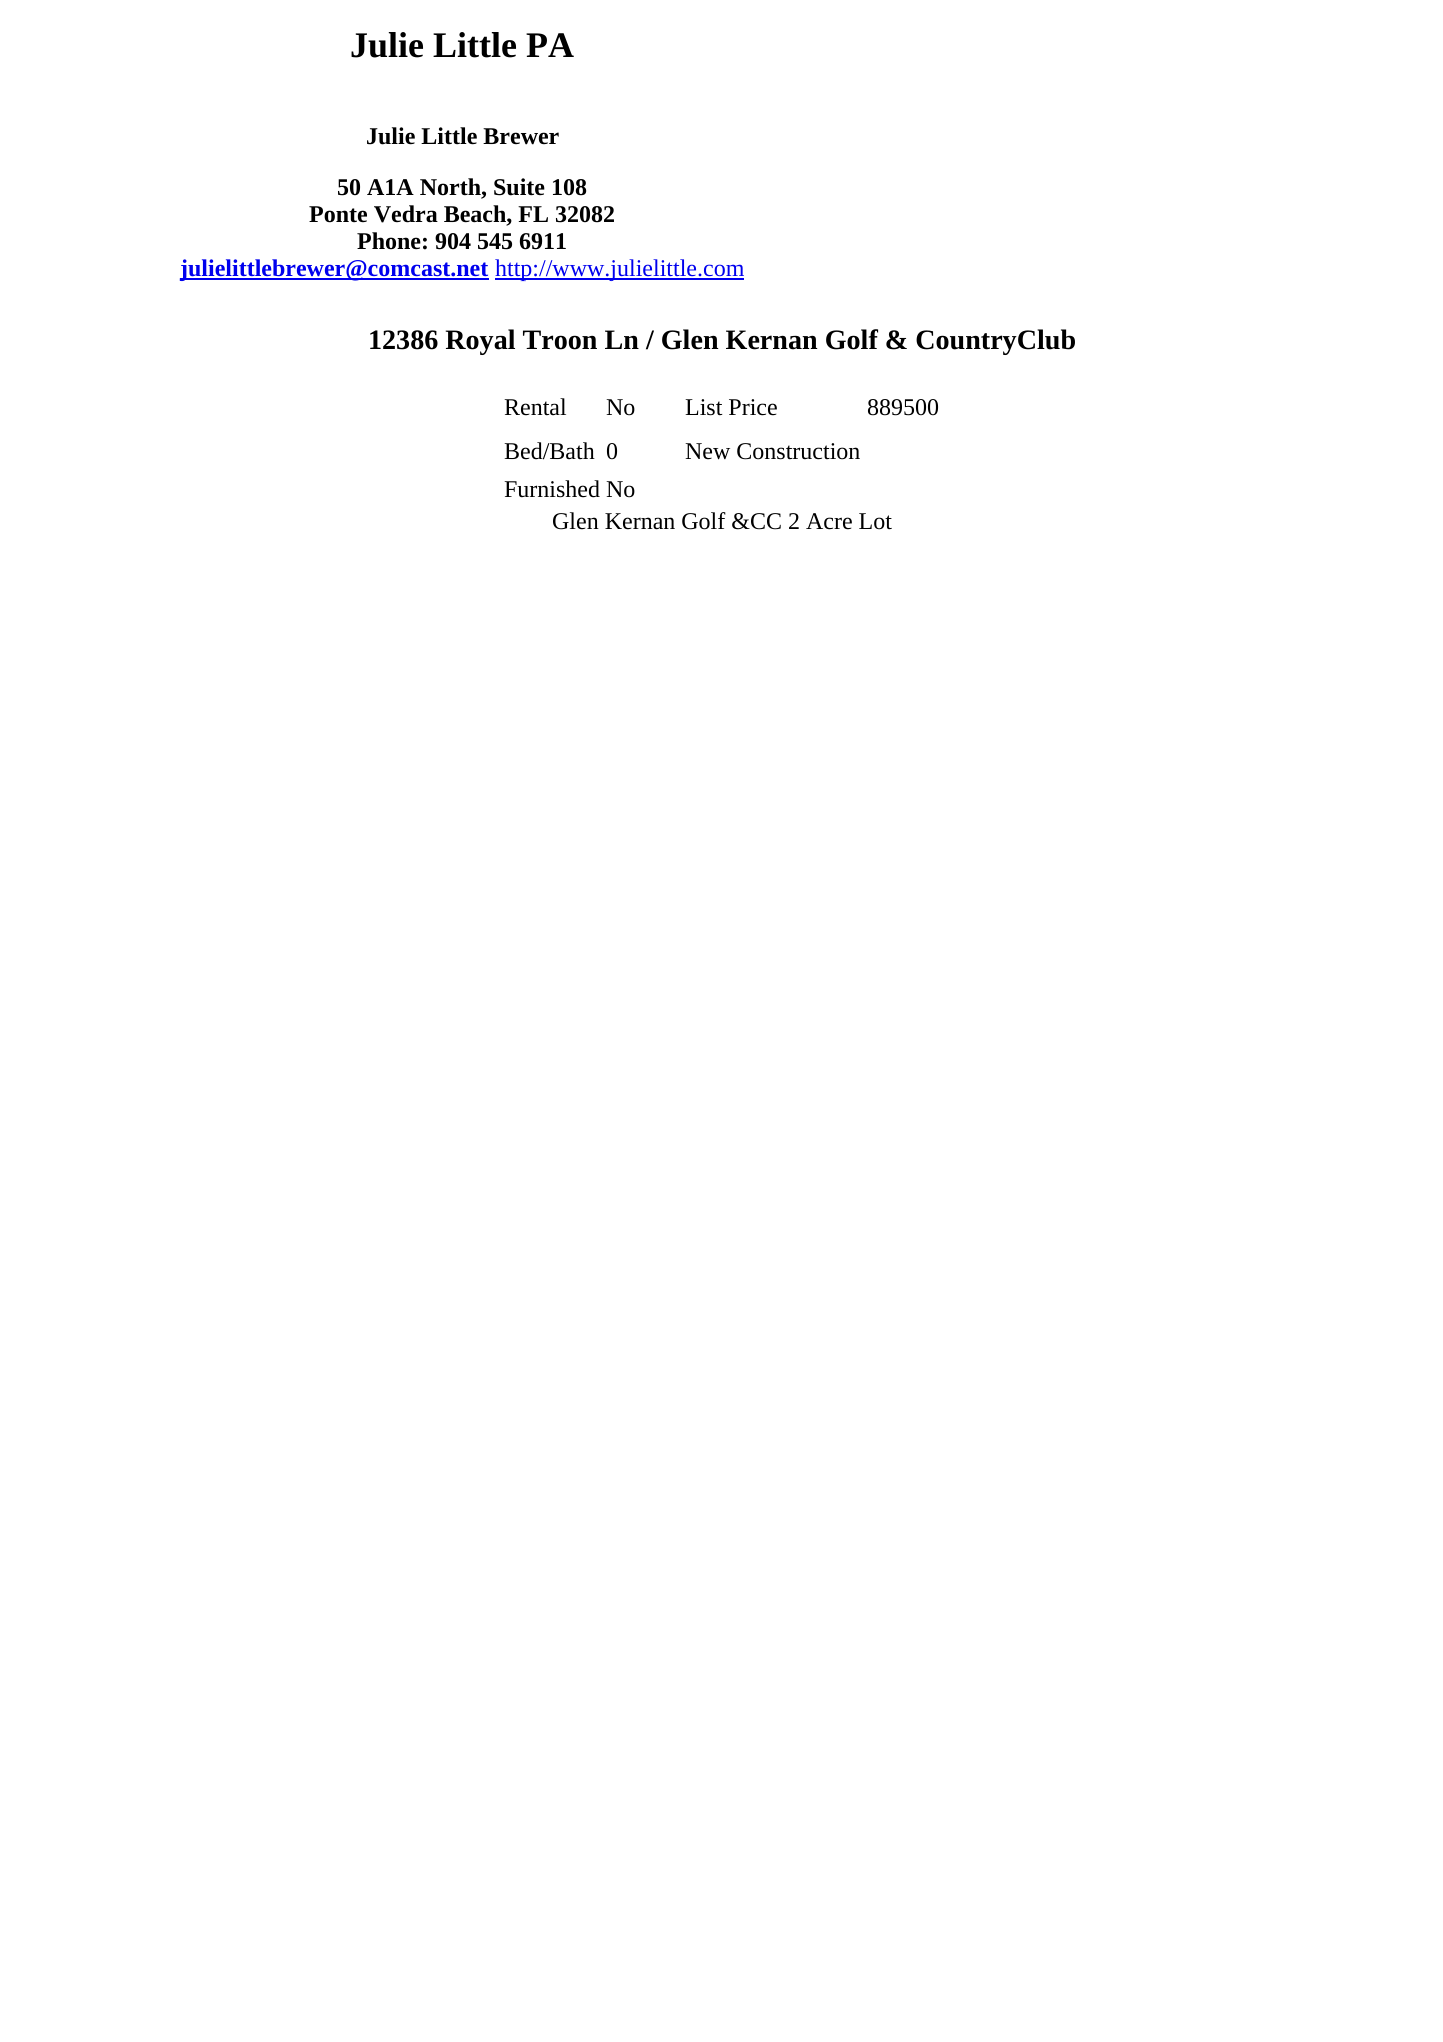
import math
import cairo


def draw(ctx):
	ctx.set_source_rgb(1, 1, 1)
	ctx.paint()
	ctx.select_font_face('Liberation Serif', cairo.FONT_SLANT_NORMAL, cairo.FONT_WEIGHT_BOLD)
	ctx.set_font_size(36)
	ctx.set_source_rgb(0, 0, 0)
	ctx.move_to(350, 57)
	ctx.show_text('Julie Little PA')
	ctx.set_font_size(24)
	for x, y, s in [
		(366, 144, 'Julie Little Brewer'),
		(337, 195, '50 A1A North, Suite 108'),
		(309, 222, 'Ponte Vedra Beach, FL 32082'),
		(357, 249, 'Phone: 904 545 6911'),
	]:
		ctx.move_to(x, y)
		ctx.show_text(s)
	ctx.set_source_rgb(0, 0, 0.933)
	ctx.rectangle(180, 278, 309, 2)
	ctx.fill()
	ctx.move_to(180, 276)
	ctx.show_text('julielittlebrewer@comcast.net')
	ctx.rectangle(495, 278, 249, 2)
	ctx.fill()
	ctx.select_font_face('Liberation Serif')
	ctx.move_to(495, 276)
	ctx.show_text('http://www.julielittle.com')
	ctx.select_font_face('Liberation Serif', cairo.FONT_SLANT_NORMAL, cairo.FONT_WEIGHT_BOLD)
	ctx.set_font_size(28.1)
	ctx.set_source_rgb(0, 0, 0)
	ctx.move_to(368, 349)
	ctx.show_text('12386 Royal Troon Ln / Glen Kernan Golf & CountryClub')
	ctx.select_font_face('Liberation Serif')
	ctx.set_font_size(24)
	for x, y, s in [
		(504, 415, 'Rental'),
		(606, 415, 'No'),
		(685, 415, 'List Price'),
		(867, 415, '889500'),
		(504, 459, 'Bed/Bath'),
		(606, 459, '0'),
		(685, 459, 'New Construction'),
		(504, 497, 'Furnished No'),
		(552, 529, 'Glen Kernan Golf &CC 2 Acre Lot'),
	]:
		ctx.move_to(x, y)
		ctx.show_text(s)


surface = cairo.ImageSurface(cairo.FORMAT_RGB24, 1443, 2042)
ctx = cairo.Context(surface)
options = cairo.FontOptions()
options.set_hint_metrics(cairo.HINT_METRICS_OFF)
options.set_hint_style(cairo.HINT_STYLE_NONE)
ctx.set_font_options(options)
ctx.set_miter_limit(4)
draw(ctx)
surface.write_to_png('image.png')
